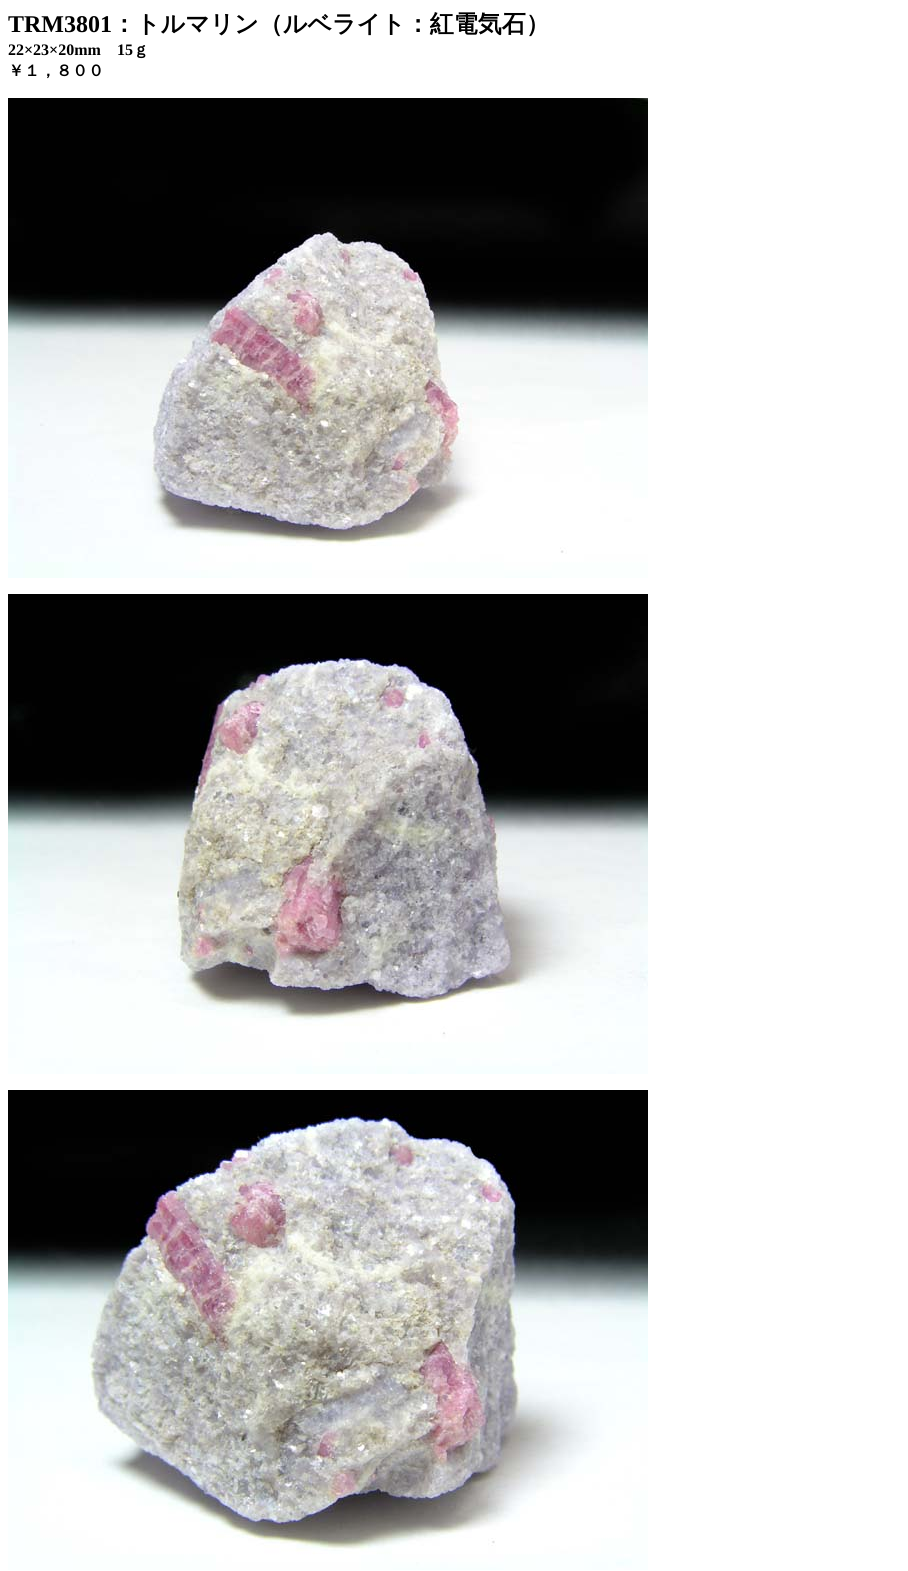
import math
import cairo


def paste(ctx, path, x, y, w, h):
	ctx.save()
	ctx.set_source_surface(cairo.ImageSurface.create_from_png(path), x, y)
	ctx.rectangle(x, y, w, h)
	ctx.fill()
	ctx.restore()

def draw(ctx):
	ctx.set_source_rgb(1, 1, 1)
	ctx.paint()
	ctx.select_font_face('Liberation Serif', cairo.FONT_SLANT_NORMAL, cairo.FONT_WEIGHT_BOLD)
	ctx.set_font_size(24)
	ctx.set_source_rgb(0, 0, 0)
	ctx.move_to(8, 32)
	ctx.show_text('TRM3801')
	ctx.select_font_face('WenQuanYi Zen Hei', cairo.FONT_SLANT_NORMAL, cairo.FONT_WEIGHT_BOLD)
	ctx.move_to(112, 32)
	ctx.show_text('：トルマリン（ルベライト：紅電気石）')
	ctx.select_font_face('Liberation Serif', cairo.FONT_SLANT_NORMAL, cairo.FONT_WEIGHT_BOLD)
	ctx.set_font_size(16)
	ctx.move_to(8, 55)
	ctx.show_text('22×23×20mm')
	ctx.move_to(117, 55)
	ctx.show_text('15')
	ctx.select_font_face('WenQuanYi Zen Hei', cairo.FONT_SLANT_NORMAL, cairo.FONT_WEIGHT_BOLD)
	ctx.move_to(133, 55)
	ctx.show_text('ｇ')
	ctx.move_to(8, 76)
	ctx.show_text('￥１，８００')
	paste(ctx, 'media/1.png', 8, 98, 640, 480)
	paste(ctx, 'media/2.png', 8, 594, 640, 480)
	paste(ctx, 'media/3.png', 8, 1090, 640, 480)


surface = cairo.ImageSurface(cairo.FORMAT_RGB24, 908, 1571)
ctx = cairo.Context(surface)
options = cairo.FontOptions()
options.set_hint_metrics(cairo.HINT_METRICS_OFF)
options.set_hint_style(cairo.HINT_STYLE_NONE)
ctx.set_font_options(options)
ctx.set_miter_limit(4)
draw(ctx)
surface.write_to_png('image.png')
